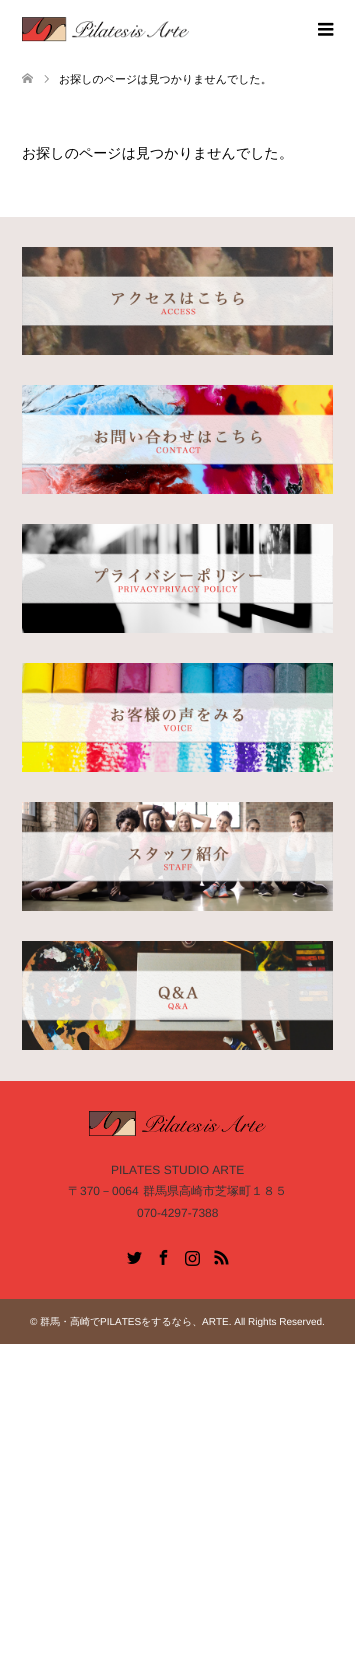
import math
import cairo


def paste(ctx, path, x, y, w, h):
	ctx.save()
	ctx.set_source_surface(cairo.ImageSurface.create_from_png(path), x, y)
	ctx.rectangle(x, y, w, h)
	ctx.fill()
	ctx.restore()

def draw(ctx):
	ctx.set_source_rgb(1, 1, 1)
	ctx.paint()
	paste(ctx, 'media/1.png', 22, 17, 167, 25)
	paste(ctx, 'media/2.png', 318, 22, 16, 14)
	paste(ctx, 'media/3.png', 22, 73, 11, 10)
	paste(ctx, 'media/4.png', 44, 75, 5, 8)
	ctx.select_font_face('WenQuanYi Zen Hei Medium')
	ctx.set_font_size(11)
	ctx.set_source_rgb(0, 0, 0)
	ctx.move_to(59, 83)
	ctx.show_text('お探しのページは見つかりませんでした。')
	ctx.set_font_size(14)
	ctx.move_to(22, 158)
	ctx.show_text('お探しのページは見つかりませんでした。')
	ctx.set_source_rgb(0.922, 0.898, 0.89)
	ctx.rectangle(0, 217, 355, 864)
	ctx.fill()
	paste(ctx, 'media/5.png', 22, 247, 311, 108)
	paste(ctx, 'media/6.png', 22, 385, 311, 109)
	paste(ctx, 'media/7.png', 22, 524, 311, 109)
	paste(ctx, 'media/8.png', 22, 663, 311, 109)
	paste(ctx, 'media/9.png', 22, 802, 311, 109)
	paste(ctx, 'media/10.png', 22, 941, 311, 109)
	ctx.set_source_rgb(0.91, 0.243, 0.224)
	ctx.rectangle(0, 1081, 355, 218)
	ctx.fill()
	paste(ctx, 'media/11.png', 89, 1111, 177, 25)
	ctx.select_font_face('Liberation Sans')
	ctx.set_font_size(12)
	ctx.set_source_rgb(0.2, 0.2, 0.2)
	ctx.move_to(111, 1174)
	ctx.show_text('PILATES STUDIO ARTE')
	ctx.select_font_face('WenQuanYi Zen Hei Medium')
	ctx.move_to(68, 1195)
	ctx.show_text('〒')
	ctx.select_font_face('Liberation Sans')
	ctx.move_to(80, 1195)
	ctx.show_text('370')
	ctx.select_font_face('WenQuanYi Zen Hei Medium')
	ctx.move_to(100, 1195)
	ctx.show_text('－')
	ctx.select_font_face('Liberation Sans')
	ctx.move_to(112, 1195)
	ctx.show_text('0064')
	ctx.select_font_face('WenQuanYi Zen Hei Medium')
	ctx.move_to(143, 1195)
	ctx.show_text('群馬県高崎市芝塚町１８５')
	ctx.select_font_face('Liberation Sans')
	ctx.move_to(137, 1217)
	ctx.show_text('070-4297-7388')
	paste(ctx, 'media/12.png', 127, 1251, 15, 13)
	paste(ctx, 'media/13.png', 159, 1249, 9, 16)
	paste(ctx, 'media/14.png', 185, 1250, 15, 16)
	paste(ctx, 'media/15.png', 214, 1250, 15, 15)
	ctx.set_source_rgb(0.451, 0.314, 0.239)
	ctx.rectangle(0, 1299, 355, 45)
	ctx.fill()
	ctx.set_font_size(10)
	ctx.set_source_rgb(1, 1, 1)
	ctx.move_to(30, 1325)
	ctx.show_text('©')
	ctx.select_font_face('WenQuanYi Zen Hei Medium')
	ctx.move_to(40, 1325)
	ctx.show_text('群馬・高崎で')
	ctx.select_font_face('Liberation Sans')
	ctx.move_to(100, 1325)
	ctx.show_text('PILATES')
	ctx.select_font_face('WenQuanYi Zen Hei Medium')
	ctx.move_to(141, 1325)
	ctx.show_text('をするなら、')
	ctx.select_font_face('Liberation Sans')
	ctx.move_to(202, 1325)
	ctx.show_text('ARTE. All Rights Reserved.')


surface = cairo.ImageSurface(cairo.FORMAT_RGB24, 355, 1661)
ctx = cairo.Context(surface)
options = cairo.FontOptions()
options.set_hint_metrics(cairo.HINT_METRICS_OFF)
options.set_hint_style(cairo.HINT_STYLE_NONE)
ctx.set_font_options(options)
ctx.set_miter_limit(4)
draw(ctx)
surface.write_to_png('image.png')
